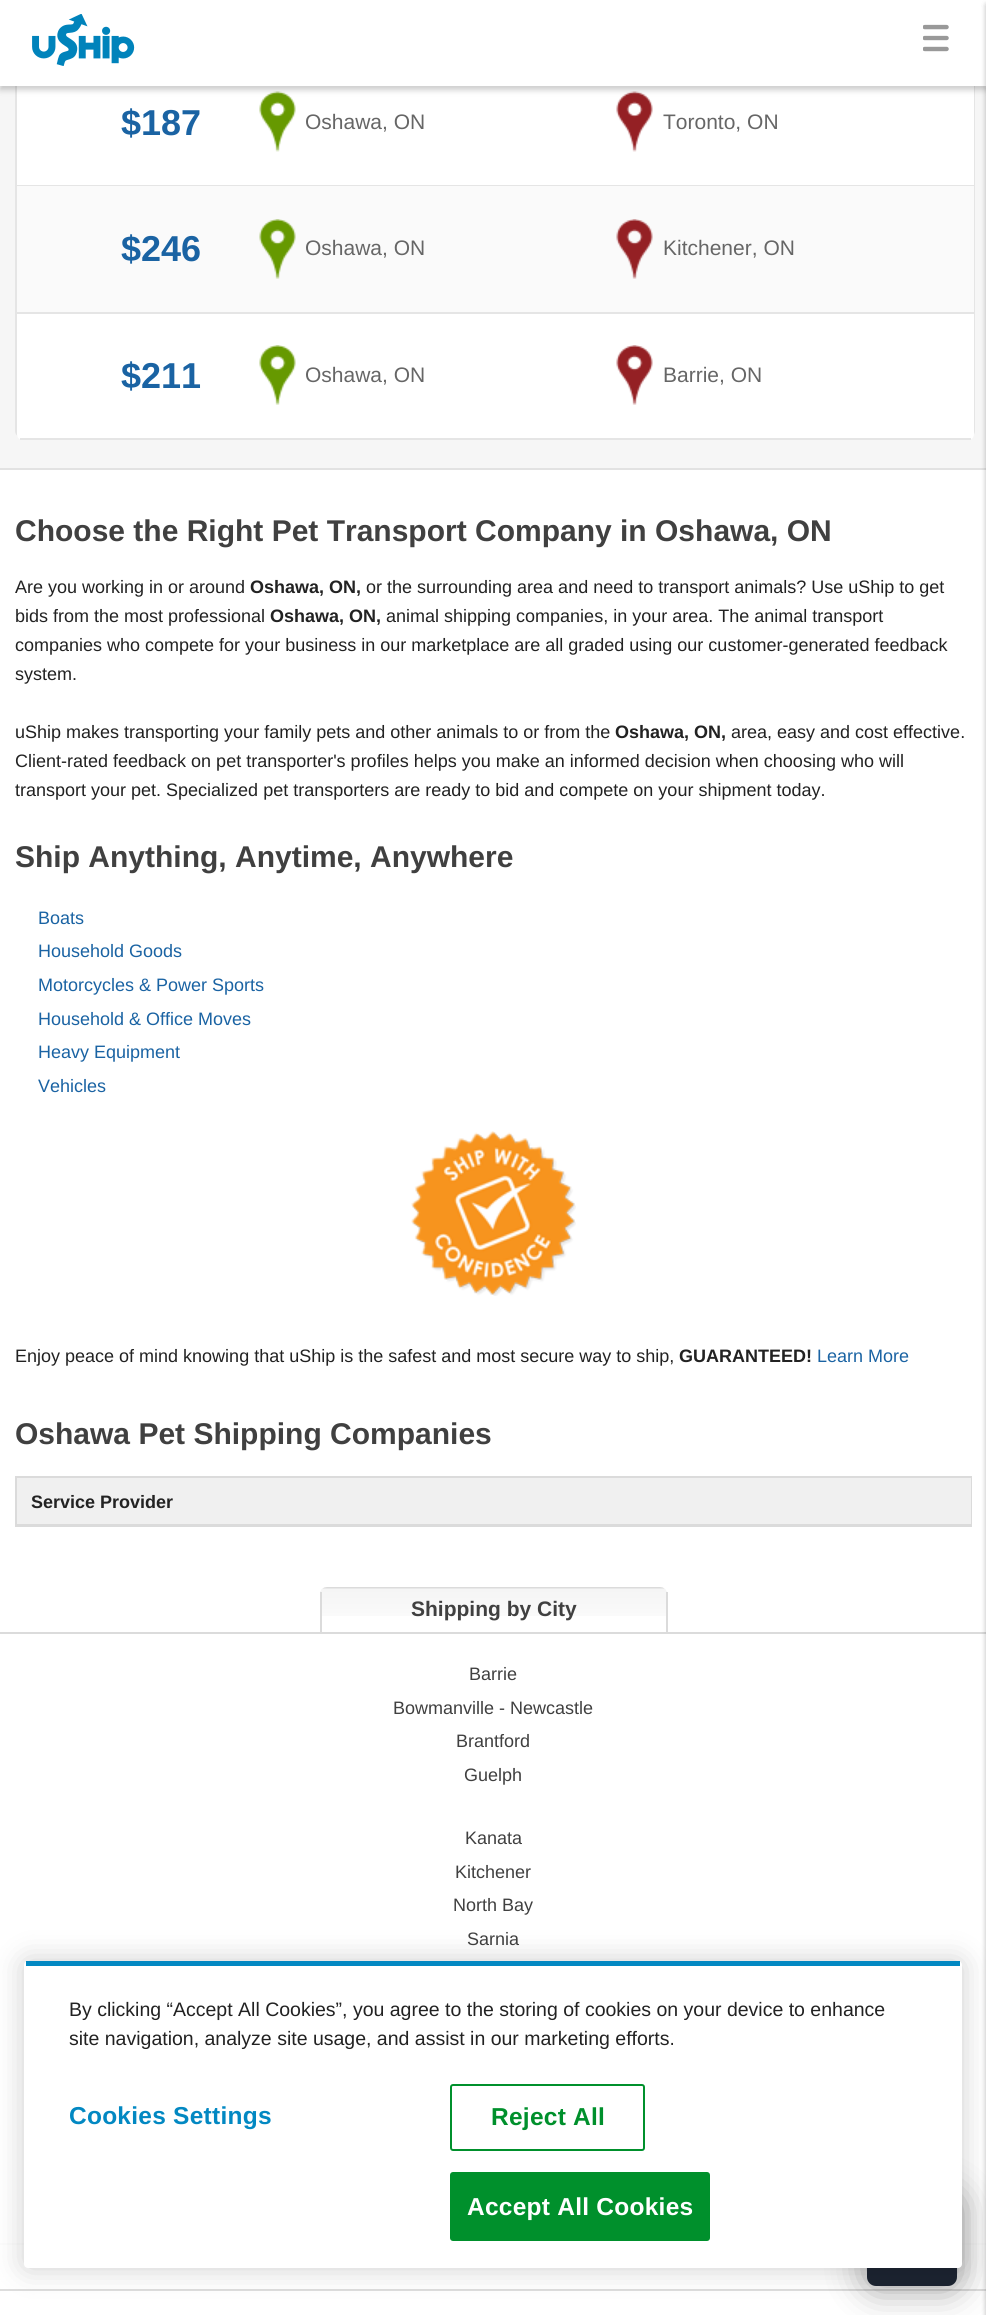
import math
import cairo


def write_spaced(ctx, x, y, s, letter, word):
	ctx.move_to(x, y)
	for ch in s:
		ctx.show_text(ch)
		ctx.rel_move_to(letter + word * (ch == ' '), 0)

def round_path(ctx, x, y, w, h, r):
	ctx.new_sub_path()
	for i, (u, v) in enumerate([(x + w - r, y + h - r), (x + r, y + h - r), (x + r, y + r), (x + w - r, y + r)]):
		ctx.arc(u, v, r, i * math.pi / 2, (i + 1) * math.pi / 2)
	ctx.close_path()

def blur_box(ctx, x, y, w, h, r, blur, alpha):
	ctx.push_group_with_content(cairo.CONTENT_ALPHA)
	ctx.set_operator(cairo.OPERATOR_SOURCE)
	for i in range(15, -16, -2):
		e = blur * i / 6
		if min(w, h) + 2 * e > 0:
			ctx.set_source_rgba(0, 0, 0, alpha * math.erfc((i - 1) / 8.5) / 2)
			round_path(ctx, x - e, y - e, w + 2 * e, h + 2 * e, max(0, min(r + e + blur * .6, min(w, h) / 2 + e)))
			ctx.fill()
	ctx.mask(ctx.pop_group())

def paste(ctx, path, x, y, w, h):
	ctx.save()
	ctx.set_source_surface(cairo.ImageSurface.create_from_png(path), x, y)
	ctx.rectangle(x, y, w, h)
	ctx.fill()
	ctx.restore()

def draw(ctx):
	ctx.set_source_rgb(1, 1, 1)
	ctx.paint()
	ctx.set_source_rgb(0.961, 0.961, 0.961)
	ctx.rectangle(0, 86, 986, 382)
	ctx.fill()
	round_path(ctx, 16, 60, 958, 376, 5)
	ctx.set_source_rgb(0.898, 0.898, 0.898)
	ctx.stroke()
	ctx.set_source_rgb(1, 1, 1)
	ctx.rectangle(15, 59, 960, 27)
	ctx.fill()
	ctx.rectangle(17, 86, 957, 99)
	ctx.fill()
	paste(ctx, 'media/3.png', 259, 91, 37, 61)
	paste(ctx, 'media/4.png', 616, 91, 37, 61)
	ctx.save()
	ctx.set_fill_rule(cairo.FILL_RULE_EVEN_ODD)
	ctx.new_path()
	ctx.move_to(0, 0)
	ctx.line_to(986, 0)
	ctx.line_to(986, 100)
	ctx.line_to(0, 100)
	ctx.close_path()
	ctx.move_to(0, 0)
	ctx.line_to(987, 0)
	ctx.line_to(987, 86)
	ctx.line_to(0, 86)
	ctx.close_path()
	ctx.clip()
	ctx.set_source_rgb(0, 0, 0)
	blur_box(ctx, 0, 5, 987, 85, 0, 3, 0.2)
	ctx.restore()
	paste(ctx, 'media/1.png', 32, 14, 103, 52)
	paste(ctx, 'media/2.png', 923, 24, 26, 28)
	ctx.set_source_rgb(0.886, 0.886, 0.886)
	ctx.rectangle(0, 468, 986, 2)
	ctx.fill()
	ctx.set_source_rgb(0.988, 0.988, 0.988)
	ctx.rectangle(0, 2243, 986, 2)
	ctx.fill()
	ctx.set_source_rgb(0.859, 0.859, 0.859)
	ctx.rectangle(0, 1632, 986, 2)
	ctx.fill()
	ctx.set_source_rgb(0.867, 0.867, 0.867)
	ctx.rectangle(0, 2289, 986, 2)
	ctx.fill()
	ctx.set_source_rgb(0, 0, 0)
	blur_box(ctx, 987, 5, 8, 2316, 0, 3, 0.2)
	blur_box(ctx, 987, 5, 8, 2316, 0, 3, 0.2)
	ctx.set_source_rgb(0.898, 0.898, 0.898)
	ctx.rectangle(17, 185, 957, 1)
	ctx.fill()
	ctx.select_font_face('Liberation Sans', cairo.FONT_SLANT_NORMAL, cairo.FONT_WEIGHT_BOLD)
	ctx.set_font_size(36)
	ctx.set_source_rgb(0.102, 0.388, 0.639)
	ctx.move_to(121, 135)
	ctx.show_text('$187')
	ctx.select_font_face('Liberation Sans')
	ctx.set_font_size(21)
	ctx.set_source_rgb(0.4, 0.4, 0.4)
	ctx.move_to(305, 129)
	ctx.show_text('Oshawa, ON')
	ctx.move_to(663, 129)
	ctx.show_text('Toronto, ON')
	ctx.set_source_rgb(0.98, 0.98, 0.98)
	ctx.rectangle(17, 186, 957, 126)
	ctx.fill()
	ctx.set_source_rgb(0.898, 0.898, 0.898)
	ctx.rectangle(17, 312, 957, 2)
	ctx.fill()
	ctx.select_font_face('Liberation Sans', cairo.FONT_SLANT_NORMAL, cairo.FONT_WEIGHT_BOLD)
	ctx.set_font_size(36)
	ctx.set_source_rgb(0.102, 0.388, 0.639)
	ctx.move_to(121, 261)
	ctx.show_text('$246')
	paste(ctx, 'media/5.png', 259, 219, 37, 60)
	ctx.select_font_face('Liberation Sans')
	ctx.set_font_size(21)
	ctx.set_source_rgb(0.4, 0.4, 0.4)
	ctx.move_to(305, 255)
	ctx.show_text('Oshawa, ON')
	paste(ctx, 'media/6.png', 616, 219, 37, 60)
	ctx.move_to(663, 255)
	ctx.show_text('Kitchener, ON')
	ctx.set_source_rgb(1, 1, 1)
	ctx.new_path()
	ctx.move_to(17, 314)
	ctx.line_to(974, 314)
	ctx.line_to(974, 434)
	ctx.curve_to(974, 437.5, 971.5, 440, 968, 440)
	ctx.line_to(23, 440)
	ctx.curve_to(19.5, 440, 17, 437.5, 17, 434)
	ctx.close_path()
	ctx.fill()
	ctx.set_source_rgb(0.898, 0.898, 0.898)
	ctx.rectangle(20, 438, 951, 2)
	ctx.fill()
	ctx.select_font_face('Liberation Sans', cairo.FONT_SLANT_NORMAL, cairo.FONT_WEIGHT_BOLD)
	ctx.set_font_size(36)
	ctx.set_source_rgb(0.102, 0.388, 0.639)
	ctx.move_to(121, 388)
	ctx.show_text('$211')
	paste(ctx, 'media/7.png', 259, 345, 37, 60)
	ctx.select_font_face('Liberation Sans')
	ctx.set_font_size(21)
	ctx.set_source_rgb(0.4, 0.4, 0.4)
	ctx.move_to(305, 382)
	ctx.show_text('Oshawa, ON')
	paste(ctx, 'media/8.png', 616, 345, 37, 60)
	ctx.move_to(663, 382)
	ctx.show_text('Barrie, ON')
	ctx.select_font_face('Liberation Sans', cairo.FONT_SLANT_NORMAL, cairo.FONT_WEIGHT_BOLD)
	ctx.set_font_size(30)
	ctx.set_source_rgb(0.251, 0.251, 0.251)
	ctx.move_to(15, 541)
	ctx.show_text('Choose the Right Pet Transport Company in Oshawa, ON')
	ctx.select_font_face('Liberation Sans')
	ctx.set_font_size(18)
	ctx.set_source_rgb(0.133, 0.133, 0.133)
	ctx.move_to(15, 593)
	ctx.show_text('Are you working in or around')
	ctx.select_font_face('Liberation Sans', cairo.FONT_SLANT_NORMAL, cairo.FONT_WEIGHT_BOLD)
	ctx.move_to(250, 593)
	ctx.show_text('Oshawa, ON,')
	ctx.select_font_face('Liberation Sans')
	ctx.move_to(366, 593)
	ctx.show_text('or the surrounding area and need to transport animals? Use uShip to get')
	ctx.move_to(15, 622)
	ctx.show_text('bids from the most professional')
	ctx.select_font_face('Liberation Sans', cairo.FONT_SLANT_NORMAL, cairo.FONT_WEIGHT_BOLD)
	ctx.move_to(270, 622)
	ctx.show_text('Oshawa, ON,')
	ctx.select_font_face('Liberation Sans')
	for x, y, s in [
		(386, 622, 'animal shipping companies, in your area. The animal transport'),
		(15, 651, 'companies who compete for your business in our marketplace are all graded using our customer-generated feedback'),
		(15, 680, 'system.'),
		(15, 738, 'uShip makes transporting your family pets and other animals to or from the'),
	]:
		ctx.move_to(x, y)
		ctx.show_text(s)
	ctx.select_font_face('Liberation Sans', cairo.FONT_SLANT_NORMAL, cairo.FONT_WEIGHT_BOLD)
	ctx.move_to(615, 738)
	ctx.show_text('Oshawa, ON,')
	ctx.select_font_face('Liberation Sans')
	for x, y, s in [
		(731, 738, 'area, easy and cost effective.'),
		(15, 767, 'Client-rated feedback on pet transporter\'s profiles helps you make an informed decision when choosing who will'),
		(15, 796, 'transport your pet. Specialized pet transporters are ready to bid and compete on your shipment today.'),
	]:
		ctx.move_to(x, y)
		ctx.show_text(s)
	ctx.select_font_face('Liberation Sans', cairo.FONT_SLANT_NORMAL, cairo.FONT_WEIGHT_BOLD)
	ctx.set_font_size(30)
	ctx.set_source_rgb(0.251, 0.251, 0.251)
	ctx.move_to(15, 867)
	ctx.show_text('Ship Anything, Anytime, Anywhere')
	ctx.select_font_face('Liberation Sans')
	ctx.set_font_size(18)
	ctx.set_source_rgb(0.102, 0.388, 0.639)
	for x, y, s in [
		(38, 924, 'Boats'),
		(38, 957, 'Household Goods'),
		(38, 991, 'Motorcycles & Power Sports'),
		(38, 1025, 'Household & Office Moves'),
		(38, 1058, 'Heavy Equipment'),
		(38, 1092, 'Vehicles'),
	]:
		ctx.move_to(x, y)
		ctx.show_text(s)
	paste(ctx, 'media/9.png', 411, 1131, 165, 165)
	ctx.set_source_rgb(0.133, 0.133, 0.133)
	ctx.move_to(15, 1362)
	ctx.show_text('Enjoy peace of mind knowing that uShip is the safest and most secure way to ship,')
	ctx.select_font_face('Liberation Sans', cairo.FONT_SLANT_NORMAL, cairo.FONT_WEIGHT_BOLD)
	ctx.move_to(679, 1362)
	ctx.show_text('GUARANTEED!')
	ctx.select_font_face('Liberation Sans')
	ctx.set_source_rgb(0.102, 0.388, 0.639)
	ctx.move_to(817, 1362)
	ctx.show_text('Learn More')
	ctx.select_font_face('Liberation Sans', cairo.FONT_SLANT_NORMAL, cairo.FONT_WEIGHT_BOLD)
	ctx.set_font_size(30)
	ctx.set_source_rgb(0.251, 0.251, 0.251)
	ctx.move_to(15, 1444)
	ctx.show_text('Oshawa Pet Shipping Companies')
	ctx.rectangle(16, 1477, 955, 49)
	ctx.set_source_rgb(0.859, 0.859, 0.859)
	ctx.stroke()
	ctx.set_source_rgb(0.941, 0.941, 0.941)
	ctx.rectangle(17, 1478, 954, 46)
	ctx.fill()
	ctx.set_source_rgb(0.859, 0.859, 0.859)
	ctx.rectangle(17, 1524, 954, 1)
	ctx.fill()
	ctx.set_font_size(18)
	ctx.set_source_rgb(0.133, 0.133, 0.133)
	ctx.move_to(31, 1508)
	ctx.show_text('Service Provider')
	paste(ctx, 'media/10.png', 320, 1587, 347, 29)
	ctx.set_source_rgb(0.859, 0.859, 0.859)
	ctx.rectangle(666, 1592, 2, 40)
	ctx.fill()
	ctx.rectangle(320, 1592, 2, 40)
	ctx.fill()
	ctx.set_font_size(21)
	ctx.set_source_rgb(0.251, 0.251, 0.251)
	ctx.move_to(411, 1616)
	ctx.show_text('Shipping by City')
	ctx.select_font_face('Liberation Sans')
	ctx.set_font_size(18)
	for x, y, s in [
		(469, 1680, 'Barrie'),
		(393, 1714, 'Bowmanville - Newcastle'),
		(456, 1747, 'Brantford'),
		(464, 1781, 'Guelph'),
		(465, 1844, 'Kanata'),
		(455, 1878, 'Kitchener'),
		(453, 1911, 'North Bay'),
		(467, 1945, 'Sarnia'),
	]:
		ctx.move_to(x, y)
		ctx.show_text(s)
	ctx.set_source_rgb(0, 0, 0)
	blur_box(ctx, 863, 2192, 99, 99, 14, 18, 0.35)
	ctx.set_source_rgb(0.11, 0.141, 0.192)
	round_path(ctx, 867, 2196, 90, 90, 9)
	ctx.fill()
	ctx.set_source_rgb(0, 0, 0)
	blur_box(ctx, 24, 1961, 938, 307, 4, 14.5, 0.2)
	ctx.set_source_rgb(1, 1, 1)
	round_path(ctx, 24, 1961, 938, 307, 4)
	ctx.fill()
	ctx.set_source_rgb(0.008, 0.533, 0.761)
	ctx.rectangle(26, 1961, 934, 5)
	ctx.fill()
	ctx.set_font_size(19.5)
	ctx.set_source_rgb(0.133, 0.133, 0.133)
	ctx.move_to(69, 2016)
	ctx.show_text('By clicking “Accept All Cookies”, you agree to the storing of cookies on your device to enhance')
	ctx.move_to(69, 2045)
	ctx.show_text('site navigation, analyze site usage, and assist in our marketing efforts.')
	ctx.select_font_face('Liberation Sans', cairo.FONT_SLANT_NORMAL, cairo.FONT_WEIGHT_BOLD)
	ctx.set_font_size(24.5)
	ctx.set_source_rgb(0.008, 0.533, 0.761)
	write_spaced(ctx, 69, 2124, 'Cookies Settings', 0.25, 0)
	round_path(ctx, 451, 2085, 193, 65, 2)
	ctx.set_source_rgb(0, 0.565, 0.173)
	ctx.stroke()
	write_spaced(ctx, 491, 2125, 'Reject All', 0.25, 0)
	round_path(ctx, 451, 2173, 258, 67, 2)
	ctx.fill_preserve()
	ctx.stroke()
	ctx.set_source_rgb(1, 1, 1)
	write_spaced(ctx, 467, 2215, 'Accept All Cookies', 0.25, 0)


surface = cairo.ImageSurface(cairo.FORMAT_RGB24, 986, 2315)
ctx = cairo.Context(surface)
options = cairo.FontOptions()
options.set_hint_metrics(cairo.HINT_METRICS_OFF)
options.set_hint_style(cairo.HINT_STYLE_NONE)
ctx.set_font_options(options)
ctx.set_miter_limit(4)
draw(ctx)
surface.write_to_png('image.png')
